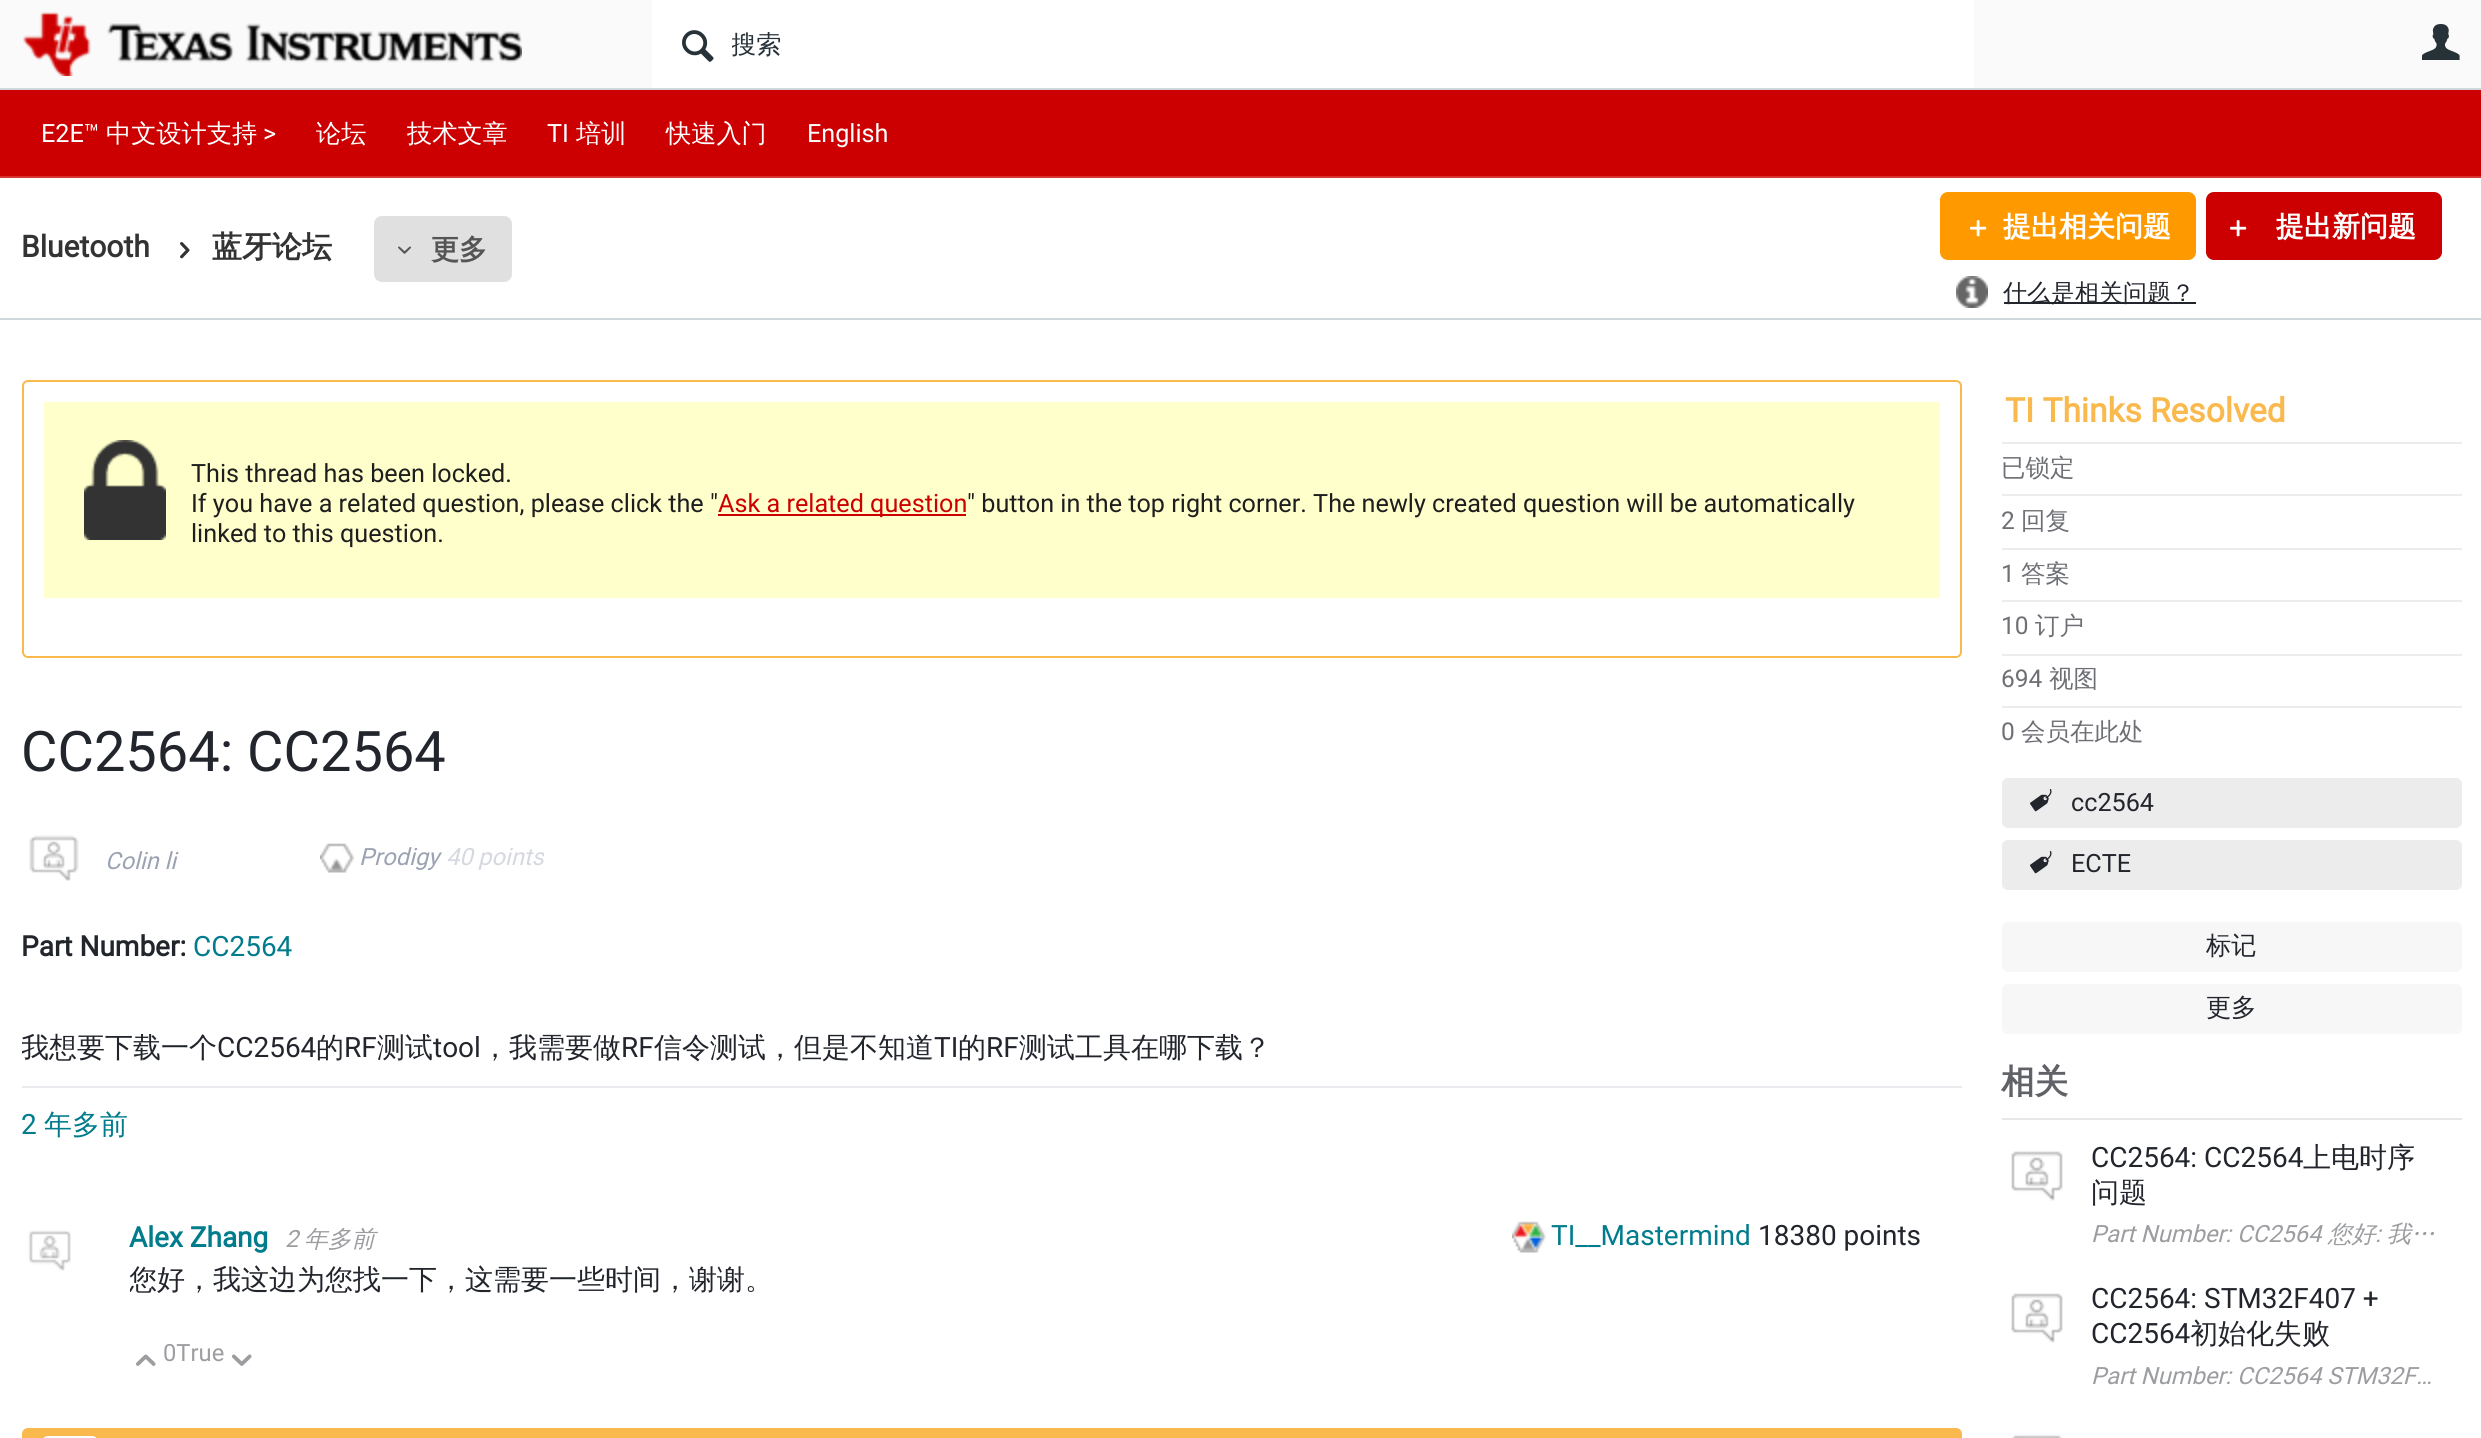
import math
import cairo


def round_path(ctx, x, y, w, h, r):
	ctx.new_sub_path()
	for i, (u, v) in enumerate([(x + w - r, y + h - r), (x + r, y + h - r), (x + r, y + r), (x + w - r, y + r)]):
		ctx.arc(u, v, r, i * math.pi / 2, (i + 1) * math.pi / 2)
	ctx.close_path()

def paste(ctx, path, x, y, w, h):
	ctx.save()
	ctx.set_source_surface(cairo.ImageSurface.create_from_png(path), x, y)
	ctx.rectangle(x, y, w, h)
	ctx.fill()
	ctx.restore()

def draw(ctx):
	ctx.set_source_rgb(1, 1, 1)
	ctx.paint()
	ctx.set_source_rgb(0.98, 0.98, 0.98)
	ctx.rectangle(0, 0, 2481, 88)
	ctx.fill()
	ctx.set_source_rgb(0.812, 0.847, 0.863)
	ctx.rectangle(0, 88, 2481, 2)
	ctx.fill()
	paste(ctx, 'media/1.png', 23, 12, 499, 64)
	ctx.set_source_rgb(1, 1, 1)
	ctx.rectangle(652, 0, 1322, 88)
	ctx.fill()
	paste(ctx, 'media/2.png', 682, 30, 32, 32)
	ctx.save()
	ctx.rectangle(732, 30, 1234, 34)
	ctx.clip()
	ctx.select_font_face('WenQuanYi Zen Hei Medium')
	ctx.set_font_size(25.2)
	ctx.set_source_rgb(0.149, 0.196, 0.22)
	ctx.move_to(731, 53)
	ctx.show_text('搜索')
	ctx.restore()
	paste(ctx, 'media/3.png', 2422, 24, 38, 36)
	ctx.set_source_rgb(0.812, 0.847, 0.863)
	ctx.rectangle(0, 318, 2481, 2)
	ctx.fill()
	ctx.set_source_rgb(0.8, 0, 0)
	ctx.rectangle(0, 90, 2481, 86)
	ctx.fill()
	ctx.set_source_rgb(0.839, 0.2, 0.2)
	ctx.rectangle(0, 176, 2481, 2)
	ctx.fill()
	ctx.select_font_face('Roboto')
	ctx.set_font_size(25.2)
	ctx.set_source_rgb(1, 1, 1)
	ctx.move_to(41, 142)
	ctx.show_text('E2E™')
	ctx.select_font_face('WenQuanYi Zen Hei Medium')
	ctx.move_to(106, 142)
	ctx.show_text('中文设计支持')
	ctx.select_font_face('Roboto')
	ctx.move_to(263, 142)
	ctx.show_text('>')
	ctx.select_font_face('WenQuanYi Zen Hei Medium')
	ctx.move_to(316, 142)
	ctx.show_text('论坛')
	ctx.move_to(407, 142)
	ctx.show_text('技术文章')
	ctx.select_font_face('Roboto')
	ctx.move_to(547, 142)
	ctx.show_text('TI')
	ctx.select_font_face('WenQuanYi Zen Hei Medium')
	ctx.move_to(576, 142)
	ctx.show_text('培训')
	ctx.move_to(666, 142)
	ctx.show_text('快速入门')
	ctx.select_font_face('Roboto')
	ctx.move_to(807, 142)
	ctx.show_text('English')
	ctx.select_font_face('Roboto', cairo.FONT_SLANT_NORMAL, cairo.FONT_WEIGHT_BOLD)
	ctx.set_font_size(30)
	ctx.set_source_rgb(0.2, 0.2, 0.2)
	ctx.move_to(21, 257)
	ctx.show_text('Bluetooth')
	paste(ctx, 'media/4.png', 180, 242, 10, 17)
	ctx.select_font_face('WenQuanYi Zen Hei', cairo.FONT_SLANT_NORMAL, cairo.FONT_WEIGHT_BOLD)
	ctx.move_to(212, 257)
	ctx.show_text('蓝牙论坛')
	ctx.set_source_rgb(0.878, 0.878, 0.878)
	round_path(ctx, 374, 216, 138, 66, 8)
	ctx.fill()
	paste(ctx, 'media/5.png', 398, 246, 13, 8)
	ctx.set_font_size(28)
	ctx.set_source_rgb(0.333, 0.333, 0.333)
	ctx.move_to(431, 259)
	ctx.show_text('更多')
	ctx.set_source_rgb(1, 0.6, 0)
	round_path(ctx, 1940, 192, 256, 68, 8)
	ctx.fill()
	paste(ctx, 'media/6.png', 1970, 220, 17, 17)
	ctx.set_source_rgb(1, 1, 1)
	ctx.move_to(2003, 236)
	ctx.show_text('提出相关问题')
	paste(ctx, 'media/7.png', 1956, 276, 32, 32)
	ctx.set_source_rgb(0.133, 0.145, 0.173)
	ctx.rectangle(2004, 302, 192, 2)
	ctx.fill()
	ctx.select_font_face('WenQuanYi Zen Hei Medium')
	ctx.set_font_size(24)
	ctx.move_to(2003, 301)
	ctx.show_text('什么是相关问题？')
	ctx.set_source_rgb(0.8, 0, 0)
	round_path(ctx, 2206, 192, 236, 68, 8)
	ctx.fill()
	paste(ctx, 'media/8.png', 2230, 220, 17, 17)
	ctx.select_font_face('WenQuanYi Zen Hei', cairo.FONT_SLANT_NORMAL, cairo.FONT_WEIGHT_BOLD)
	ctx.set_font_size(28)
	ctx.set_source_rgb(1, 1, 1)
	ctx.move_to(2276, 236)
	ctx.show_text('提出新问题')
	round_path(ctx, 23, 381, 1938, 276, 5)
	ctx.set_source_rgb(0.98, 0.725, 0.302)
	ctx.stroke()
	ctx.set_source_rgb(1, 1, 0.8)
	ctx.rectangle(44, 402, 1896, 196)
	ctx.fill()
	paste(ctx, 'media/9.png', 84, 440, 82, 100)
	ctx.select_font_face('Roboto')
	ctx.set_font_size(25.2)
	ctx.set_source_rgb(0.118, 0.118, 0.118)
	ctx.move_to(191, 482)
	ctx.show_text('This thread has been locked.')
	ctx.move_to(191, 512)
	ctx.show_text('If you have a related question, please click the "')
	ctx.set_source_rgb(0.8, 0, 0)
	ctx.rectangle(718, 514, 248, 2)
	ctx.fill()
	ctx.move_to(718, 512)
	ctx.show_text('Ask a related question')
	ctx.set_source_rgb(0.118, 0.118, 0.118)
	ctx.move_to(967, 512)
	ctx.show_text('" button in the top right corner. The newly created question will be automatically')
	ctx.move_to(191, 542)
	ctx.show_text('linked to this question.')
	ctx.set_font_size(56)
	ctx.set_source_rgb(0.133, 0.145, 0.173)
	ctx.move_to(21, 771)
	ctx.show_text('CC2564: CC2564')
	paste(ctx, 'media/10.png', 29, 835, 50, 46)
	ctx.select_font_face('Roboto', cairo.FONT_SLANT_ITALIC)
	ctx.set_font_size(23.75)
	ctx.set_source_rgb(0.608, 0.635, 0.698)
	ctx.move_to(105, 869)
	ctx.show_text('Colin li')
	paste(ctx, 'media/11.png', 320, 843, 34, 30)
	ctx.move_to(359, 865)
	ctx.show_text('Prodigy')
	ctx.set_source_rgb(0.835, 0.847, 0.871)
	ctx.move_to(446, 865)
	ctx.show_text('40')
	ctx.save()
	ctx.rectangle(22, 826, 522, 64)
	ctx.clip()
	ctx.move_to(478, 865)
	ctx.show_text('points')
	ctx.restore()
	ctx.set_source_rgb(0.914, 0.918, 0.933)
	ctx.rectangle(22, 1086, 1940, 2)
	ctx.fill()
	ctx.select_font_face('Roboto', cairo.FONT_SLANT_NORMAL, cairo.FONT_WEIGHT_BOLD)
	ctx.set_font_size(28)
	ctx.set_source_rgb(0.133, 0.145, 0.173)
	ctx.move_to(21, 956)
	ctx.show_text('Part Number:')
	ctx.select_font_face('Roboto')
	ctx.set_source_rgb(0, 0.486, 0.549)
	ctx.move_to(193, 956)
	ctx.show_text('CC2564')
	ctx.save()
	ctx.rectangle(22, 930, 1940, 156)
	ctx.clip()
	ctx.select_font_face('WenQuanYi Zen Hei Medium')
	ctx.set_source_rgb(0.133, 0.145, 0.173)
	ctx.move_to(21, 1057)
	ctx.show_text('我想要下载一个')
	ctx.restore()
	ctx.set_source_rgb(0.133, 0.145, 0.173)
	ctx.move_to(217, 1057)
	ctx.show_text('CC2564')
	ctx.select_font_face('WenQuanYi Zen Hei Medium')
	ctx.move_to(316, 1057)
	ctx.show_text('的')
	ctx.select_font_face('Roboto')
	ctx.move_to(344, 1057)
	ctx.show_text('RF')
	ctx.select_font_face('WenQuanYi Zen Hei Medium')
	ctx.move_to(377, 1057)
	ctx.show_text('测试')
	ctx.select_font_face('Roboto')
	ctx.move_to(433, 1057)
	ctx.show_text('tool')
	ctx.select_font_face('WenQuanYi Zen Hei Medium')
	ctx.move_to(481, 1057)
	ctx.show_text('，我需要做')
	ctx.select_font_face('Roboto')
	ctx.move_to(621, 1057)
	ctx.show_text('RF')
	ctx.select_font_face('WenQuanYi Zen Hei Medium')
	ctx.move_to(654, 1057)
	ctx.show_text('信令测试，但是不知道')
	ctx.select_font_face('Roboto')
	ctx.move_to(934, 1057)
	ctx.show_text('TI')
	ctx.select_font_face('WenQuanYi Zen Hei Medium')
	ctx.move_to(958, 1057)
	ctx.show_text('的')
	ctx.select_font_face('Roboto')
	ctx.move_to(986, 1057)
	ctx.show_text('RF')
	ctx.select_font_face('WenQuanYi Zen Hei Medium')
	ctx.move_to(1019, 1057)
	ctx.show_text('测试工具在哪下载？')
	ctx.select_font_face('Roboto')
	ctx.set_source_rgb(0, 0.486, 0.549)
	ctx.move_to(21, 1134)
	ctx.show_text('2')
	ctx.select_font_face('WenQuanYi Zen Hei Medium')
	ctx.move_to(44, 1134)
	ctx.show_text('年多前')
	paste(ctx, 'media/12.png', 28, 1230, 43, 41)
	ctx.select_font_face('Roboto', cairo.FONT_SLANT_NORMAL, cairo.FONT_WEIGHT_BOLD)
	ctx.move_to(129, 1247)
	ctx.show_text('Alex Zhang')
	ctx.select_font_face('Roboto', cairo.FONT_SLANT_ITALIC)
	ctx.set_font_size(23.75)
	ctx.set_source_rgb(0.612, 0.616, 0.627)
	ctx.move_to(285, 1247)
	ctx.show_text('2')
	ctx.select_font_face('WenQuanYi Zen Hei Medium', cairo.FONT_SLANT_ITALIC)
	ctx.move_to(304, 1247)
	ctx.show_text('年多前')
	paste(ctx, 'media/13.png', 1512, 1221, 34, 32)
	ctx.select_font_face('Roboto')
	ctx.set_font_size(28)
	ctx.set_source_rgb(0, 0.486, 0.549)
	ctx.move_to(1551, 1245)
	ctx.show_text('TI__Mastermind')
	ctx.set_source_rgb(0.133, 0.145, 0.173)
	ctx.move_to(1758, 1245)
	ctx.show_text('18380 points')
	ctx.save()
	ctx.rectangle(130, 1264, 1832, 52)
	ctx.clip()
	ctx.select_font_face('WenQuanYi Zen Hei Medium')
	ctx.move_to(129, 1289)
	ctx.show_text('您好，我这边为您找一下，这需要一些时间，谢谢。')
	ctx.restore()
	paste(ctx, 'media/14.png', 136, 1354, 20, 12)
	ctx.set_font_size(23.75)
	ctx.set_source_rgb(0.612, 0.616, 0.627)
	ctx.move_to(163, 1361)
	ctx.show_text('0True')
	paste(ctx, 'media/15.png', 232, 1354, 20, 12)
	round_path(ctx, 23, 1429, 1938, 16, 5)
	ctx.set_source_rgb(0.98, 0.725, 0.302)
	ctx.stroke()
	ctx.rectangle(24, 1430, 1936, 8)
	ctx.fill()
	round_path(ctx, 43, 1437, 54, 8, 5)
	ctx.set_source_rgb(1, 1, 1)
	ctx.stroke()
	ctx.set_source_rgb(0.922, 0.922, 0.925)
	ctx.rectangle(2002, 442, 460, 2)
	ctx.fill()
	ctx.select_font_face('Roboto', cairo.FONT_SLANT_NORMAL, cairo.FONT_WEIGHT_BOLD)
	ctx.set_font_size(33.5)
	ctx.set_source_rgb(0.98, 0.725, 0.302)
	ctx.move_to(2005, 422)
	ctx.show_text('TI Thinks Resolved')
	ctx.set_source_rgb(0.922, 0.922, 0.925)
	ctx.rectangle(2002, 494, 460, 2)
	ctx.fill()
	ctx.select_font_face('WenQuanYi Zen Hei Medium')
	ctx.set_font_size(24.5)
	ctx.set_source_rgb(0.427, 0.435, 0.455)
	ctx.move_to(2001, 476)
	ctx.show_text('已锁定')
	ctx.set_source_rgb(0.922, 0.922, 0.925)
	ctx.rectangle(2002, 548, 460, 2)
	ctx.fill()
	ctx.select_font_face('Roboto')
	ctx.set_source_rgb(0.427, 0.435, 0.455)
	ctx.move_to(2001, 529)
	ctx.show_text('2')
	ctx.select_font_face('WenQuanYi Zen Hei Medium')
	ctx.move_to(2021, 529)
	ctx.show_text('回复')
	ctx.set_source_rgb(0.922, 0.922, 0.925)
	ctx.rectangle(2002, 600, 460, 2)
	ctx.fill()
	ctx.select_font_face('Roboto')
	ctx.set_source_rgb(0.427, 0.435, 0.455)
	ctx.move_to(2001, 582)
	ctx.show_text('1')
	ctx.select_font_face('WenQuanYi Zen Hei Medium')
	ctx.move_to(2021, 582)
	ctx.show_text('答案')
	ctx.set_source_rgb(0.922, 0.922, 0.925)
	ctx.rectangle(2002, 654, 460, 2)
	ctx.fill()
	ctx.select_font_face('Roboto')
	ctx.set_source_rgb(0.427, 0.435, 0.455)
	ctx.move_to(2001, 634)
	ctx.show_text('10')
	ctx.select_font_face('WenQuanYi Zen Hei Medium')
	ctx.move_to(2035, 634)
	ctx.show_text('订户')
	ctx.set_source_rgb(0.922, 0.922, 0.925)
	ctx.rectangle(2002, 706, 460, 2)
	ctx.fill()
	ctx.select_font_face('Roboto')
	ctx.set_source_rgb(0.427, 0.435, 0.455)
	ctx.move_to(2001, 687)
	ctx.show_text('694')
	ctx.select_font_face('WenQuanYi Zen Hei Medium')
	ctx.move_to(2049, 687)
	ctx.show_text('视图')
	ctx.select_font_face('Roboto')
	ctx.move_to(2001, 740)
	ctx.show_text('0')
	ctx.select_font_face('WenQuanYi Zen Hei Medium')
	ctx.move_to(2021, 740)
	ctx.show_text('会员在此处')
	ctx.set_source_rgb(0.922, 0.922, 0.925)
	round_path(ctx, 2002, 778, 460, 50, 6)
	ctx.fill()
	paste(ctx, 'media/16.png', 2030, 789, 22, 23)
	ctx.select_font_face('Roboto')
	ctx.set_font_size(25.2)
	ctx.set_source_rgb(0.133, 0.145, 0.173)
	ctx.move_to(2071, 811)
	ctx.show_text('cc2564')
	ctx.set_source_rgb(0.922, 0.922, 0.925)
	round_path(ctx, 2002, 840, 460, 50, 6)
	ctx.fill()
	paste(ctx, 'media/16.png', 2030, 851, 22, 23)
	ctx.set_source_rgb(0.133, 0.145, 0.173)
	ctx.move_to(2071, 872)
	ctx.show_text('ECTE')
	ctx.set_source_rgb(0.965, 0.965, 0.969)
	round_path(ctx, 2002, 922, 460, 50, 6)
	ctx.fill()
	ctx.select_font_face('WenQuanYi Zen Hei Medium')
	ctx.set_source_rgb(0.133, 0.145, 0.173)
	ctx.move_to(2206, 954)
	ctx.show_text('标记')
	ctx.set_source_rgb(0.965, 0.965, 0.969)
	round_path(ctx, 2002, 984, 460, 50, 6)
	ctx.fill()
	ctx.set_source_rgb(0.133, 0.145, 0.173)
	ctx.move_to(2206, 1016)
	ctx.show_text('更多')
	ctx.set_source_rgb(0.906, 0.906, 0.91)
	ctx.rectangle(2002, 1118, 460, 2)
	ctx.fill()
	ctx.select_font_face('WenQuanYi Zen Hei', cairo.FONT_SLANT_NORMAL, cairo.FONT_WEIGHT_BOLD)
	ctx.set_font_size(33.5)
	ctx.set_source_rgb(0.376, 0.384, 0.404)
	ctx.move_to(2001, 1093)
	ctx.show_text('相关')
	ctx.select_font_face('Roboto')
	ctx.set_font_size(28)
	ctx.set_source_rgb(0.133, 0.145, 0.173)
	ctx.move_to(2091, 1167)
	ctx.show_text('CC2564: CC2564')
	ctx.select_font_face('WenQuanYi Zen Hei Medium')
	ctx.move_to(2303, 1167)
	ctx.show_text('上电时序')
	ctx.move_to(2091, 1202)
	ctx.show_text('问题')
	paste(ctx, 'media/17.png', 2011, 1151, 52, 50)
	ctx.select_font_face('Roboto', cairo.FONT_SLANT_ITALIC)
	ctx.set_font_size(23.75)
	ctx.set_source_rgb(0.612, 0.616, 0.627)
	ctx.move_to(2091, 1242)
	ctx.show_text('Part Number: CC2564')
	ctx.select_font_face('WenQuanYi Zen Hei Medium', cairo.FONT_SLANT_ITALIC)
	ctx.move_to(2328, 1242)
	ctx.show_text('您好')
	ctx.select_font_face('Roboto', cairo.FONT_SLANT_ITALIC)
	ctx.move_to(2375, 1242)
	ctx.show_text(':')
	ctx.select_font_face('WenQuanYi Zen Hei Medium', cairo.FONT_SLANT_ITALIC)
	ctx.move_to(2387, 1242)
	ctx.show_text('我…')
	ctx.select_font_face('Roboto')
	ctx.set_font_size(28)
	ctx.set_source_rgb(0.133, 0.145, 0.173)
	ctx.move_to(2091, 1308)
	ctx.show_text('CC2564: STM32F407 +')
	ctx.move_to(2091, 1343)
	ctx.show_text('CC2564')
	ctx.select_font_face('WenQuanYi Zen Hei Medium')
	ctx.move_to(2190, 1343)
	ctx.show_text('初始化失败')
	paste(ctx, 'media/17.png', 2011, 1293, 52, 50)
	ctx.select_font_face('Roboto', cairo.FONT_SLANT_ITALIC)
	ctx.set_font_size(23.75)
	ctx.set_source_rgb(0.612, 0.616, 0.627)
	ctx.move_to(2091, 1384)
	ctx.show_text('Part Number: CC2564 STM32F…')
	paste(ctx, 'media/18.png', 2011, 1435, 52, 3)


surface = cairo.ImageSurface(cairo.FORMAT_RGB24, 2481, 1438)
ctx = cairo.Context(surface)
options = cairo.FontOptions()
options.set_hint_metrics(cairo.HINT_METRICS_OFF)
options.set_hint_style(cairo.HINT_STYLE_NONE)
ctx.set_font_options(options)
ctx.set_miter_limit(4)
draw(ctx)
surface.write_to_png('image.png')
